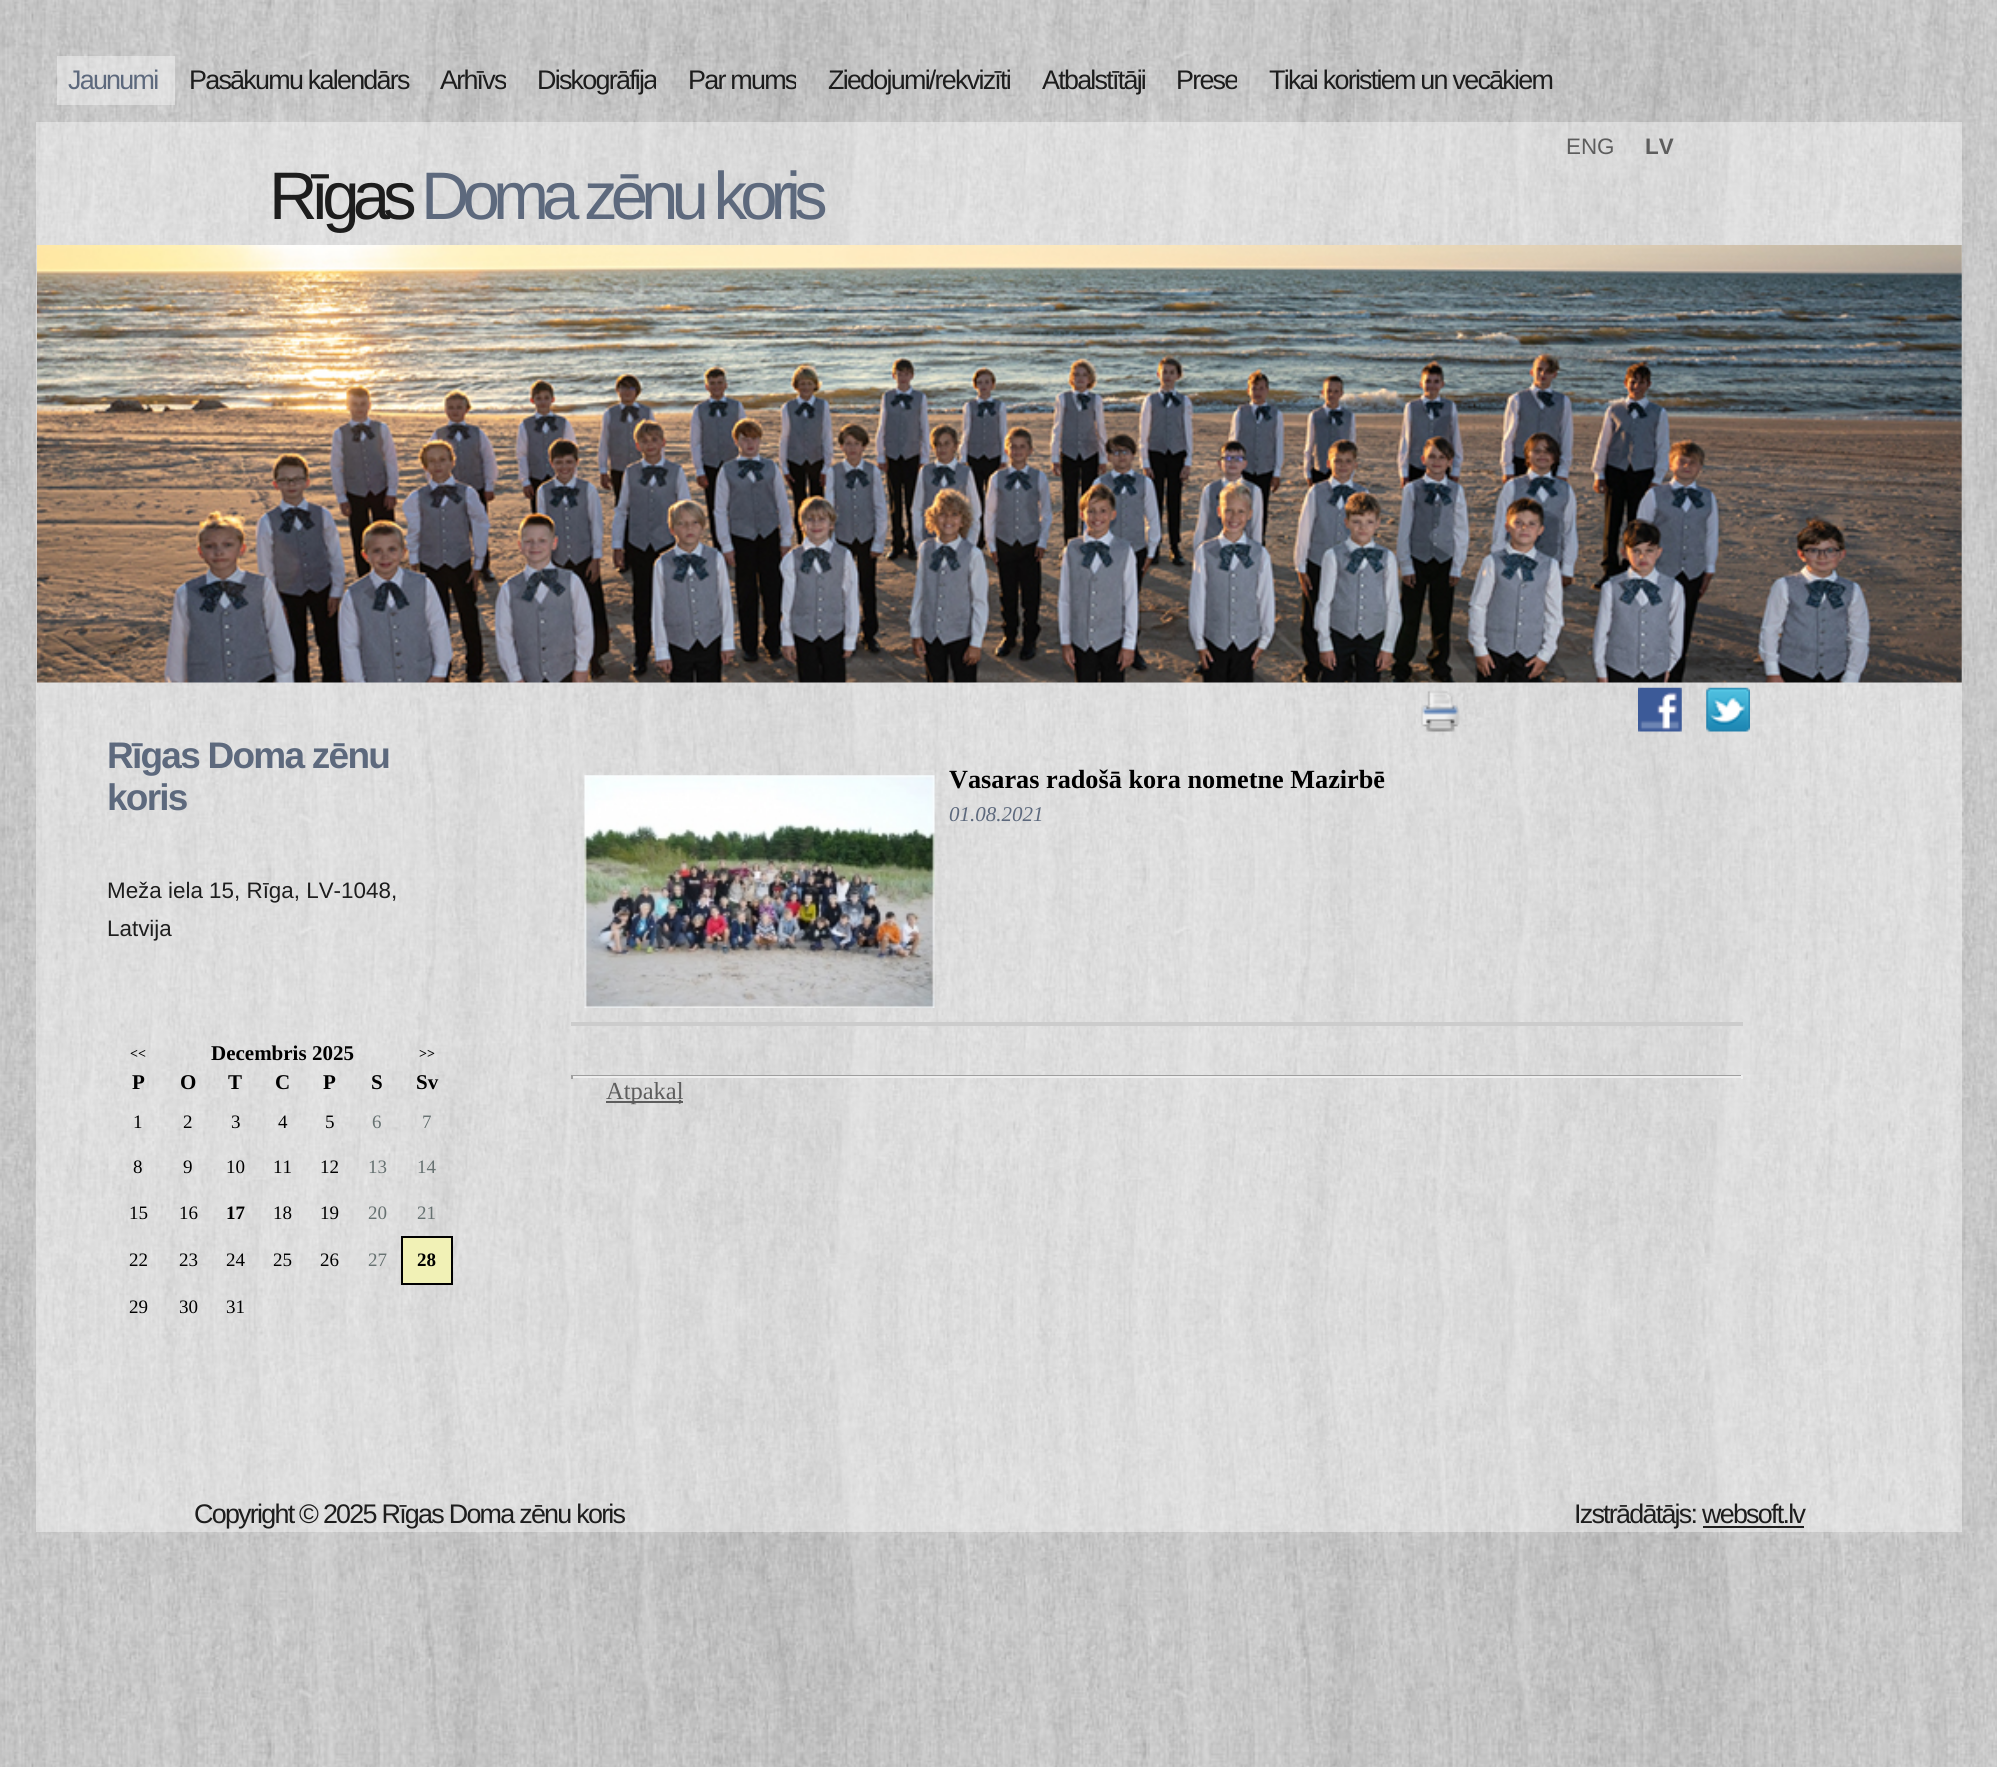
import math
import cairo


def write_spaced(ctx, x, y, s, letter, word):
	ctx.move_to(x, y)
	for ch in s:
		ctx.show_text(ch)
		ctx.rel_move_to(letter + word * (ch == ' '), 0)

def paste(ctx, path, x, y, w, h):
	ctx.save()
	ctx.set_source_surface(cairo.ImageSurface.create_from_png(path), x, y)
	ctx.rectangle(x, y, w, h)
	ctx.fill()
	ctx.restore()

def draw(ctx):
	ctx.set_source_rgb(1, 1, 1)
	ctx.paint()
	paste(ctx, 'media/1.png', 0, 0, 1997, 1767)
	ctx.set_source_rgba(1, 1, 1, 0.4)
	ctx.rectangle(57, 56, 118, 49)
	ctx.fill()
	ctx.select_font_face('Liberation Sans')
	ctx.set_font_size(26.9)
	ctx.set_source_rgb(0.365, 0.412, 0.49)
	write_spaced(ctx, 68, 89, 'Jaunumi', -1.75, 0)
	ctx.set_source_rgb(0.114, 0.114, 0.114)
	write_spaced(ctx, 189, 89, 'Pasākumu kalendārs', -1.75, 0)
	ctx.save()
	ctx.rectangle(439, 56, 67, 114)
	ctx.clip()
	write_spaced(ctx, 440, 89, 'Arhīvs', -1.75, 0)
	ctx.restore()
	ctx.save()
	ctx.rectangle(536, 56, 120, 114)
	ctx.clip()
	write_spaced(ctx, 537, 89, 'Diskogrāfija', -1.75, 0)
	ctx.restore()
	ctx.save()
	ctx.rectangle(686, 56, 110, 114)
	ctx.clip()
	write_spaced(ctx, 688, 89, 'Par mums', -1.75, 0)
	ctx.restore()
	write_spaced(ctx, 828, 89, 'Ziedojumi/rekvizīti', -1.75, 0)
	write_spaced(ctx, 1042, 89, 'Atbalstītāji', -1.75, 0)
	ctx.save()
	ctx.rectangle(1174, 56, 63, 114)
	ctx.clip()
	write_spaced(ctx, 1176, 89, 'Prese', -1.75, 0)
	ctx.restore()
	write_spaced(ctx, 1269, 89, 'Tikai koristiem un vecākiem', -1.75, 0)
	ctx.set_source_rgba(1, 1, 1, 0.4)
	ctx.rectangle(36, 122, 1926, 1410)
	ctx.fill()
	ctx.set_font_size(22.4)
	ctx.set_source_rgb(0.365, 0.365, 0.365)
	ctx.move_to(1566, 154)
	ctx.show_text('ENG')
	ctx.select_font_face('Liberation Sans', cairo.FONT_SLANT_NORMAL, cairo.FONT_WEIGHT_BOLD)
	ctx.move_to(1645, 154)
	ctx.show_text('LV')
	ctx.select_font_face('Liberation Sans')
	ctx.set_font_size(67.25)
	ctx.set_source_rgb(0.114, 0.114, 0.114)
	write_spaced(ctx, 269, 219, 'Rīgas', -7, 0)
	ctx.set_source_rgb(0.365, 0.412, 0.49)
	write_spaced(ctx, 421, 219, 'Doma zēnu koris', -7, 0)
	paste(ctx, 'media/2.png', 36, 245, 1926, 438)
	ctx.select_font_face('Liberation Sans', cairo.FONT_SLANT_NORMAL, cairo.FONT_WEIGHT_BOLD)
	ctx.set_font_size(37)
	write_spaced(ctx, 107, 768, 'Rīgas Doma zēnu', -1.75, 0)
	write_spaced(ctx, 107, 810, 'koris', -1.75, 0)
	ctx.select_font_face('Liberation Sans')
	ctx.set_font_size(22.4)
	ctx.set_source_rgb(0.114, 0.114, 0.114)
	ctx.move_to(107, 898)
	ctx.show_text('Meža iela 15, Rīga, LV-1048,')
	ctx.move_to(107, 936)
	ctx.show_text('Latvija')
	ctx.select_font_face('Liberation Serif', cairo.FONT_SLANT_NORMAL, cairo.FONT_WEIGHT_BOLD)
	ctx.set_font_size(14)
	ctx.set_source_rgb(0, 0, 0)
	ctx.move_to(130, 1058)
	ctx.show_text('<<')
	ctx.set_font_size(21)
	ctx.move_to(211, 1060)
	ctx.show_text('Decembris 2025')
	ctx.set_font_size(14)
	ctx.move_to(419, 1058)
	ctx.show_text('>>')
	ctx.set_font_size(21)
	for x, y, s in [
		(132, 1089, 'P'),
		(180, 1089, 'O'),
		(228, 1089, 'T'),
		(275, 1089, 'C'),
		(323, 1089, 'P'),
		(371, 1089, 'S'),
		(416, 1089, 'Sv'),
	]:
		ctx.move_to(x, y)
		ctx.show_text(s)
	ctx.select_font_face('Liberation Serif')
	ctx.set_font_size(19)
	for x, y, s in [
		(133, 1128, '1'),
		(183, 1128, '2'),
		(231, 1128, '3'),
		(278, 1128, '4'),
		(325, 1128, '5'),
	]:
		ctx.move_to(x, y)
		ctx.show_text(s)
	ctx.set_source_rgb(0.4, 0.443, 0.443)
	ctx.move_to(372, 1128)
	ctx.show_text('6')
	ctx.move_to(422, 1128)
	ctx.show_text('7')
	ctx.set_source_rgb(0, 0, 0)
	for x, y, s in [
		(133, 1173, '8'),
		(183, 1173, '9'),
		(226, 1173, '10'),
		(273, 1173, '11'),
		(320, 1173, '12'),
	]:
		ctx.move_to(x, y)
		ctx.show_text(s)
	ctx.set_source_rgb(0.4, 0.443, 0.443)
	ctx.move_to(368, 1173)
	ctx.show_text('13')
	ctx.move_to(417, 1173)
	ctx.show_text('14')
	ctx.set_source_rgb(0, 0, 0)
	ctx.move_to(129, 1219)
	ctx.show_text('15')
	ctx.move_to(179, 1219)
	ctx.show_text('16')
	ctx.select_font_face('Liberation Serif', cairo.FONT_SLANT_NORMAL, cairo.FONT_WEIGHT_BOLD)
	ctx.move_to(226, 1219)
	ctx.show_text('17')
	ctx.select_font_face('Liberation Serif')
	ctx.move_to(273, 1219)
	ctx.show_text('18')
	ctx.move_to(320, 1219)
	ctx.show_text('19')
	ctx.set_source_rgb(0.4, 0.443, 0.443)
	ctx.move_to(368, 1219)
	ctx.show_text('20')
	ctx.move_to(417, 1219)
	ctx.show_text('21')
	ctx.set_source_rgb(0, 0, 0)
	for x, y, s in [
		(129, 1266, '22'),
		(179, 1266, '23'),
		(226, 1266, '24'),
		(273, 1266, '25'),
		(320, 1266, '26'),
	]:
		ctx.move_to(x, y)
		ctx.show_text(s)
	ctx.set_source_rgb(0.4, 0.443, 0.443)
	ctx.move_to(368, 1266)
	ctx.show_text('27')
	ctx.set_source_rgb(0.945, 0.945, 0.714)
	ctx.rectangle(402, 1237, 50, 47)
	ctx.fill_preserve()
	ctx.set_source_rgb(0, 0, 0)
	ctx.stroke()
	ctx.select_font_face('Liberation Serif', cairo.FONT_SLANT_NORMAL, cairo.FONT_WEIGHT_BOLD)
	ctx.move_to(417, 1266)
	ctx.show_text('28')
	ctx.select_font_face('Liberation Serif')
	for x, y, s in [
		(129, 1313, '29'),
		(179, 1313, '30'),
		(226, 1313, '31'),
	]:
		ctx.move_to(x, y)
		ctx.show_text(s)
	paste(ctx, 'media/3.png', 1420, 690, 40, 42)
	paste(ctx, 'media/4.png', 1638, 687, 44, 45)
	paste(ctx, 'media/5.png', 1706, 687, 44, 45)
	paste(ctx, 'media/6.png', 584, 775, 351, 233)
	ctx.select_font_face('Liberation Serif', cairo.FONT_SLANT_NORMAL, cairo.FONT_WEIGHT_BOLD)
	ctx.set_font_size(26.25)
	ctx.move_to(949, 788)
	ctx.show_text('Vasaras radošā kora nometne Mazirbē')
	ctx.select_font_face('Liberation Serif', cairo.FONT_SLANT_ITALIC)
	ctx.set_font_size(21)
	ctx.set_source_rgb(0.365, 0.412, 0.49)
	ctx.move_to(949, 821)
	ctx.show_text('01.08.2021')
	ctx.set_source_rgb(0.8, 0.8, 0.8)
	ctx.rectangle(571, 1022, 1172, 4)
	ctx.fill()
	ctx.set_source_rgb(0.624, 0.624, 0.624)
	ctx.rectangle(571, 1075, 1172, 1)
	ctx.fill()
	ctx.set_source_rgb(0.933, 0.933, 0.933)
	ctx.rectangle(1741, 1075, 2, 4)
	ctx.rectangle(571, 1076, 1172, 2)
	ctx.fill()
	ctx.set_source_rgb(0.624, 0.624, 0.624)
	ctx.rectangle(571, 1075, 2, 4)
	ctx.fill()
	ctx.set_source_rgb(0.365, 0.365, 0.365)
	ctx.rectangle(606, 1101, 77, 2)
	ctx.fill()
	ctx.select_font_face('Liberation Serif')
	ctx.set_font_size(24.5)
	ctx.move_to(606, 1099)
	ctx.show_text('Atpakaļ')
	ctx.select_font_face('Liberation Sans')
	ctx.set_font_size(26.9)
	ctx.set_source_rgb(0.114, 0.114, 0.114)
	write_spaced(ctx, 194, 1523, 'Copyright © 2025 Rīgas Doma zēnu koris', -1.75, 0)
	write_spaced(ctx, 1574, 1523, 'Izstrādātājs: websoft.lv', -1.75, 0)
	ctx.rectangle(1703, 1526, 101, 2)
	ctx.fill()


surface = cairo.ImageSurface(cairo.FORMAT_RGB24, 1997, 1767)
ctx = cairo.Context(surface)
options = cairo.FontOptions()
options.set_hint_metrics(cairo.HINT_METRICS_OFF)
options.set_hint_style(cairo.HINT_STYLE_NONE)
ctx.set_font_options(options)
ctx.set_miter_limit(4)
draw(ctx)
surface.write_to_png('image.png')
